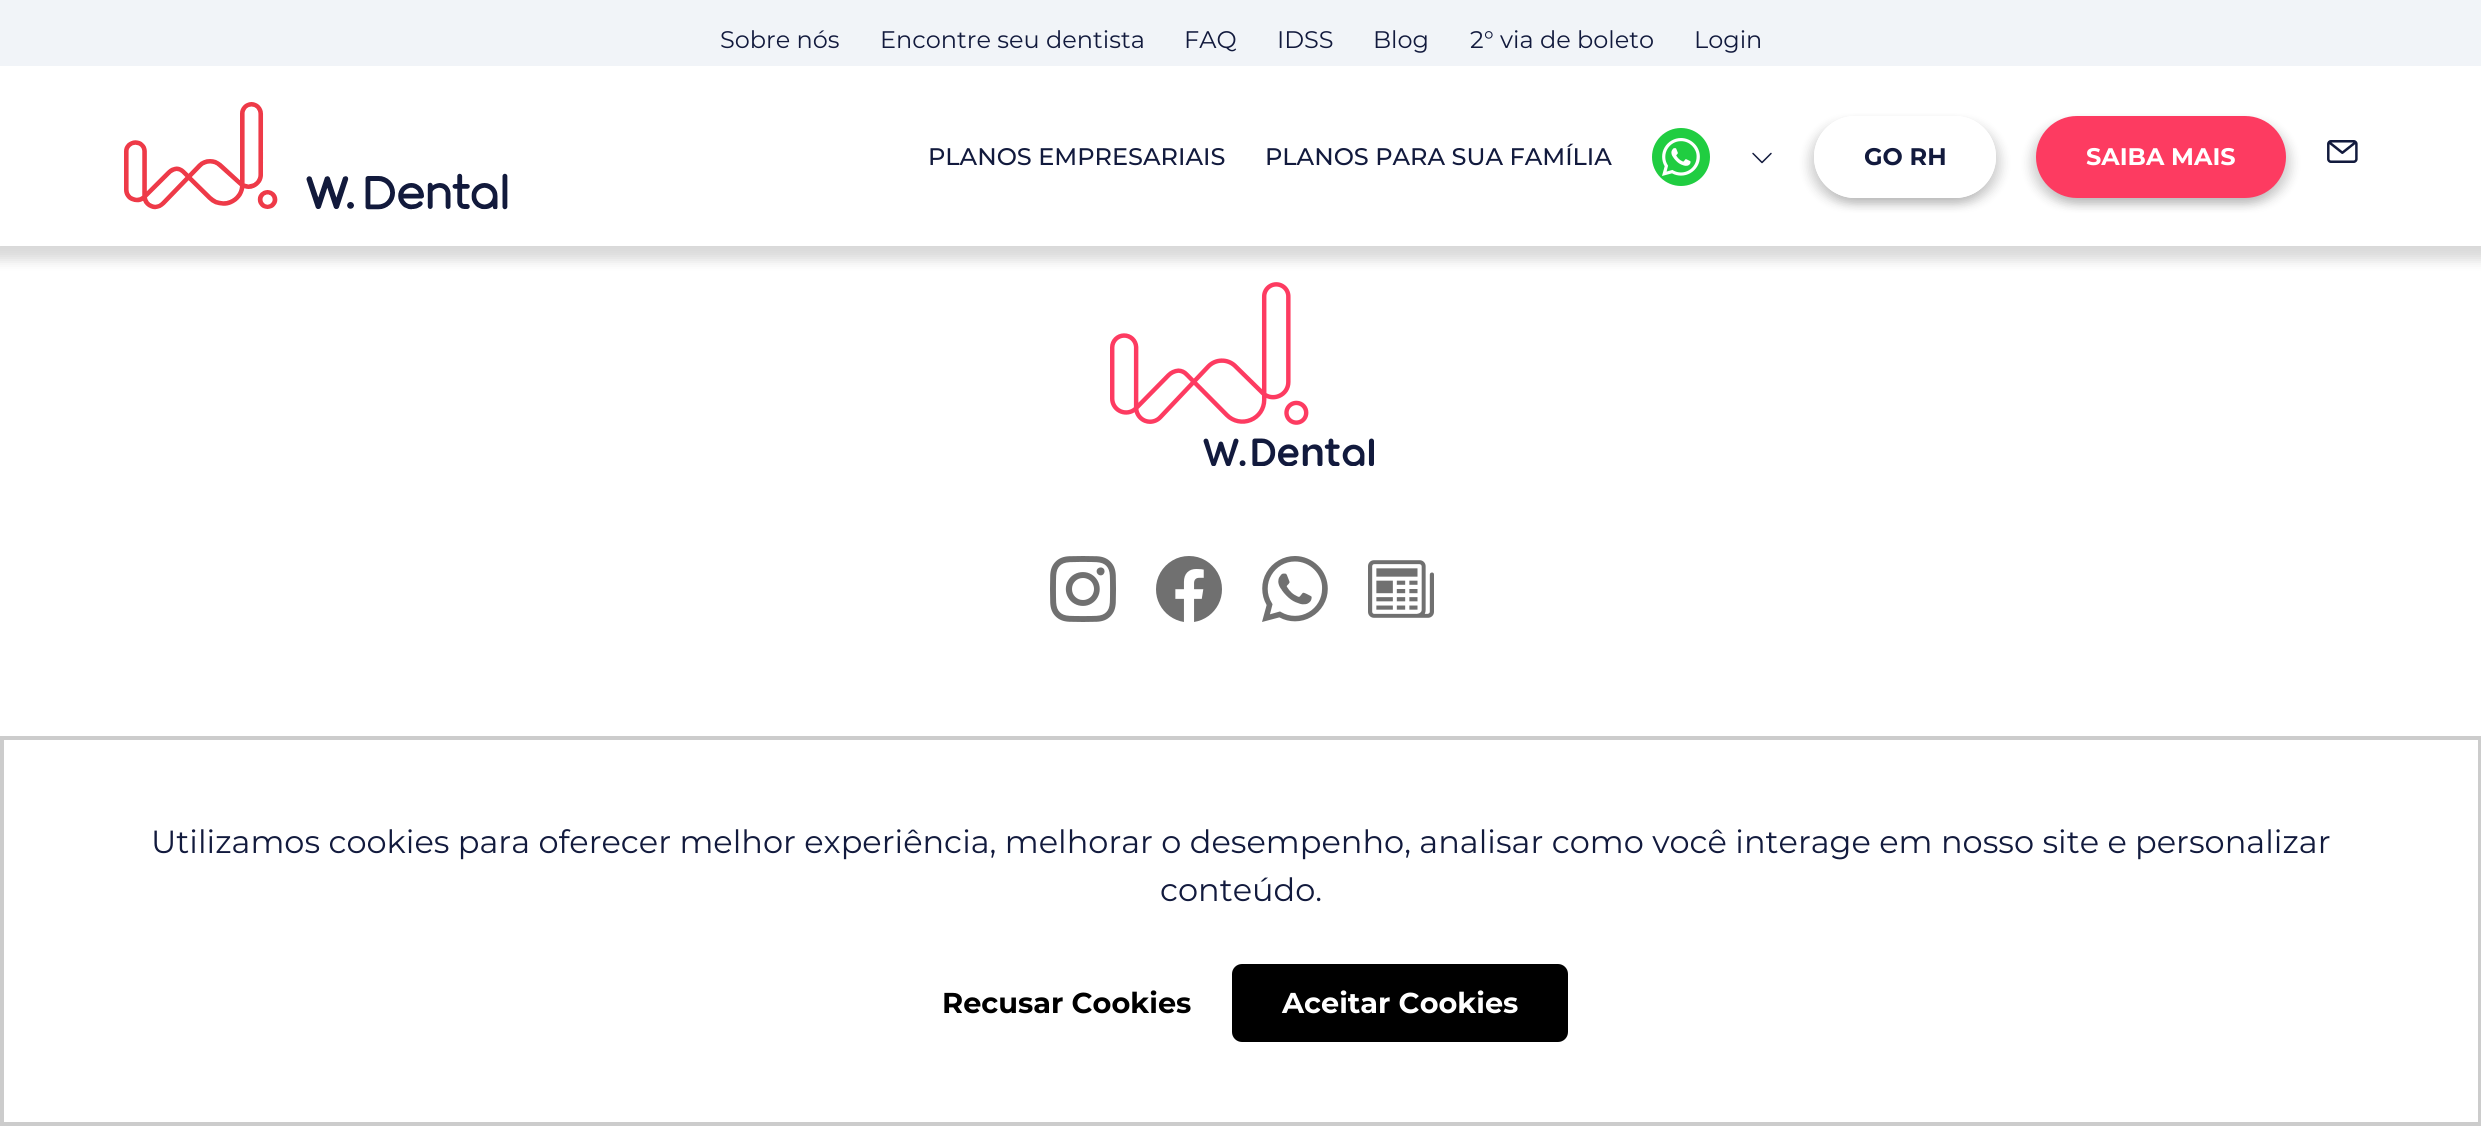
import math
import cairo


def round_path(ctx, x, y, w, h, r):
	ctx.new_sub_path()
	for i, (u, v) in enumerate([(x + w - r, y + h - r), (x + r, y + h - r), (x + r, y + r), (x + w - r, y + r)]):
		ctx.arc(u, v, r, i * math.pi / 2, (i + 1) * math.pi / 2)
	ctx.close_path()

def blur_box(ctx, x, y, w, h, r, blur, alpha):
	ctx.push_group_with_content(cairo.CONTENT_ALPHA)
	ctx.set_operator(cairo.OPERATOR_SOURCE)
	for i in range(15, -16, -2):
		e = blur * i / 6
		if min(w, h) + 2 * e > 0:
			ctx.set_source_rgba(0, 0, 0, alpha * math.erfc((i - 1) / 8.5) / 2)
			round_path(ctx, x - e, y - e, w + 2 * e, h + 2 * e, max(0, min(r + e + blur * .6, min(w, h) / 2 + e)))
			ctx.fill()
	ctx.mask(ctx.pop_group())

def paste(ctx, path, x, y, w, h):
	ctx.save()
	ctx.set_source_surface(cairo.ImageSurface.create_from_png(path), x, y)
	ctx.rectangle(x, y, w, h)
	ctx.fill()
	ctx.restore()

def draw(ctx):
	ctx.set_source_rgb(1, 1, 1)
	ctx.paint()
	ctx.set_source_rgb(0, 0, 0)
	blur_box(ctx, -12, 56, 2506, 204, 0, 6, 0.15)
	ctx.set_source_rgb(0.945, 0.957, 0.969)
	ctx.rectangle(0, 0, 2481, 66)
	ctx.fill()
	ctx.select_font_face('Montserrat')
	ctx.set_font_size(24)
	ctx.set_source_rgb(0.071, 0.102, 0.239)
	for x, y, s in [
		(720, 48, 'Sobre nós'),
		(880, 48, 'Encontre seu dentista'),
		(1184, 48, 'FAQ'),
		(1277, 48, 'IDSS'),
		(1373, 48, 'Blog'),
		(1470, 48, '2° via de boleto'),
		(1694, 48, 'Login'),
	]:
		ctx.move_to(x, y)
		ctx.show_text(s)
	ctx.set_source_rgb(1, 1, 1)
	ctx.rectangle(0, 66, 2481, 180)
	ctx.fill()
	paste(ctx, 'media/1.png', 124, 102, 384, 108)
	ctx.select_font_face('Montserrat Medium')
	ctx.set_source_rgb(0.071, 0.102, 0.239)
	ctx.move_to(928, 165)
	ctx.show_text('PLANOS EMPRESARIAIS')
	ctx.move_to(1265, 165)
	ctx.show_text('PLANOS PARA SUA FAMÍLIA')
	ctx.set_source_rgb(0.125, 0.804, 0.255)
	ctx.new_path()
	ctx.arc(1681, 157, 29, 0, 2 * math.pi)
	ctx.fill()
	paste(ctx, 'media/2.png', 1662, 138, 38, 38)
	paste(ctx, 'media/3.png', 1752, 152, 20, 12)
	ctx.save()
	ctx.set_fill_rule(cairo.FILL_RULE_EVEN_ODD)
	ctx.new_path()
	ctx.move_to(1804, 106)
	ctx.line_to(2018, 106)
	ctx.line_to(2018, 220)
	ctx.line_to(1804, 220)
	ctx.close_path()
	ctx.move_to(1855, 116)
	ctx.line_to(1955, 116)
	ctx.curve_to(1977.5, 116, 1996, 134.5, 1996, 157)
	ctx.curve_to(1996, 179.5, 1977.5, 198, 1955, 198)
	ctx.line_to(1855, 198)
	ctx.curve_to(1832.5, 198, 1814, 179.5, 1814, 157)
	ctx.curve_to(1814, 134.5, 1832.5, 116, 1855, 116)
	ctx.close_path()
	ctx.clip()
	ctx.set_source_rgb(0, 0, 0)
	blur_box(ctx, 1820, 122, 182, 82, 41, 5, 0.15)
	ctx.restore()
	ctx.save()
	ctx.set_fill_rule(cairo.FILL_RULE_EVEN_ODD)
	ctx.new_path()
	ctx.move_to(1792, 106)
	ctx.line_to(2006, 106)
	ctx.line_to(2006, 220)
	ctx.line_to(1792, 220)
	ctx.close_path()
	ctx.move_to(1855, 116)
	ctx.line_to(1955, 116)
	ctx.curve_to(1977.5, 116, 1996, 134.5, 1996, 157)
	ctx.curve_to(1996, 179.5, 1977.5, 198, 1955, 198)
	ctx.line_to(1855, 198)
	ctx.curve_to(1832.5, 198, 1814, 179.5, 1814, 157)
	ctx.curve_to(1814, 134.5, 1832.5, 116, 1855, 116)
	ctx.close_path()
	ctx.clip()
	ctx.set_source_rgb(0, 0, 0)
	blur_box(ctx, 1808, 122, 182, 82, 41, 5, 0.15)
	ctx.restore()
	round_path(ctx, 1815, 117, 180, 80, 40)
	ctx.set_source_rgb(1, 1, 1)
	ctx.stroke()
	ctx.select_font_face('Montserrat', cairo.FONT_SLANT_NORMAL, cairo.FONT_WEIGHT_BOLD)
	ctx.set_source_rgb(0.071, 0.102, 0.239)
	ctx.move_to(1864, 165)
	ctx.show_text('GO RH')
	ctx.set_source_rgb(0, 0, 0)
	blur_box(ctx, 2042, 122, 250, 82, 41, 5, 0.15)
	blur_box(ctx, 2030, 122, 250, 82, 41, 5, 0.15)
	ctx.set_source_rgb(0.992, 0.231, 0.38)
	round_path(ctx, 2037, 117, 248, 80, 40)
	ctx.fill_preserve()
	ctx.stroke()
	ctx.set_source_rgb(1, 1, 1)
	ctx.move_to(2086, 165)
	ctx.show_text('SAIBA MAIS')
	paste(ctx, 'media/4.png', 2327, 140, 31, 23)
	paste(ctx, 'media/5.png', 1110, 282, 264, 184)
	paste(ctx, 'media/6.png', 1050, 556, 66, 66)
	paste(ctx, 'media/7.png', 1156, 556, 66, 66)
	paste(ctx, 'media/8.png', 1262, 556, 66, 66)
	paste(ctx, 'media/9.png', 1368, 560, 66, 58)
	ctx.rectangle(2, 738, 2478, 386)
	ctx.set_source_rgb(0.8, 0.8, 0.8)
	ctx.set_line_width(4)
	ctx.stroke()
	ctx.select_font_face('Montserrat')
	ctx.set_font_size(32)
	ctx.set_source_rgb(0.071, 0.102, 0.239)
	ctx.move_to(151, 853)
	ctx.show_text('Utilizamos cookies para oferecer melhor experiência, melhorar o desempenho, analisar como você interage em nosso site e personalizar')
	ctx.move_to(1160, 901)
	ctx.show_text('conteúdo.')
	ctx.select_font_face('Montserrat', cairo.FONT_SLANT_NORMAL, cairo.FONT_WEIGHT_BOLD)
	ctx.set_font_size(28.75)
	ctx.set_source_rgb(0, 0, 0)
	ctx.move_to(942, 1013)
	ctx.show_text('Recusar Cookies')
	round_path(ctx, 1232, 964, 336, 78, 10)
	ctx.fill()
	ctx.set_source_rgb(1, 1, 1)
	ctx.move_to(1282, 1013)
	ctx.show_text('Aceitar Cookies')


surface = cairo.ImageSurface(cairo.FORMAT_RGB24, 2481, 1126)
ctx = cairo.Context(surface)
options = cairo.FontOptions()
options.set_hint_metrics(cairo.HINT_METRICS_OFF)
options.set_hint_style(cairo.HINT_STYLE_NONE)
ctx.set_font_options(options)
ctx.set_miter_limit(4)
draw(ctx)
surface.write_to_png('image.png')
